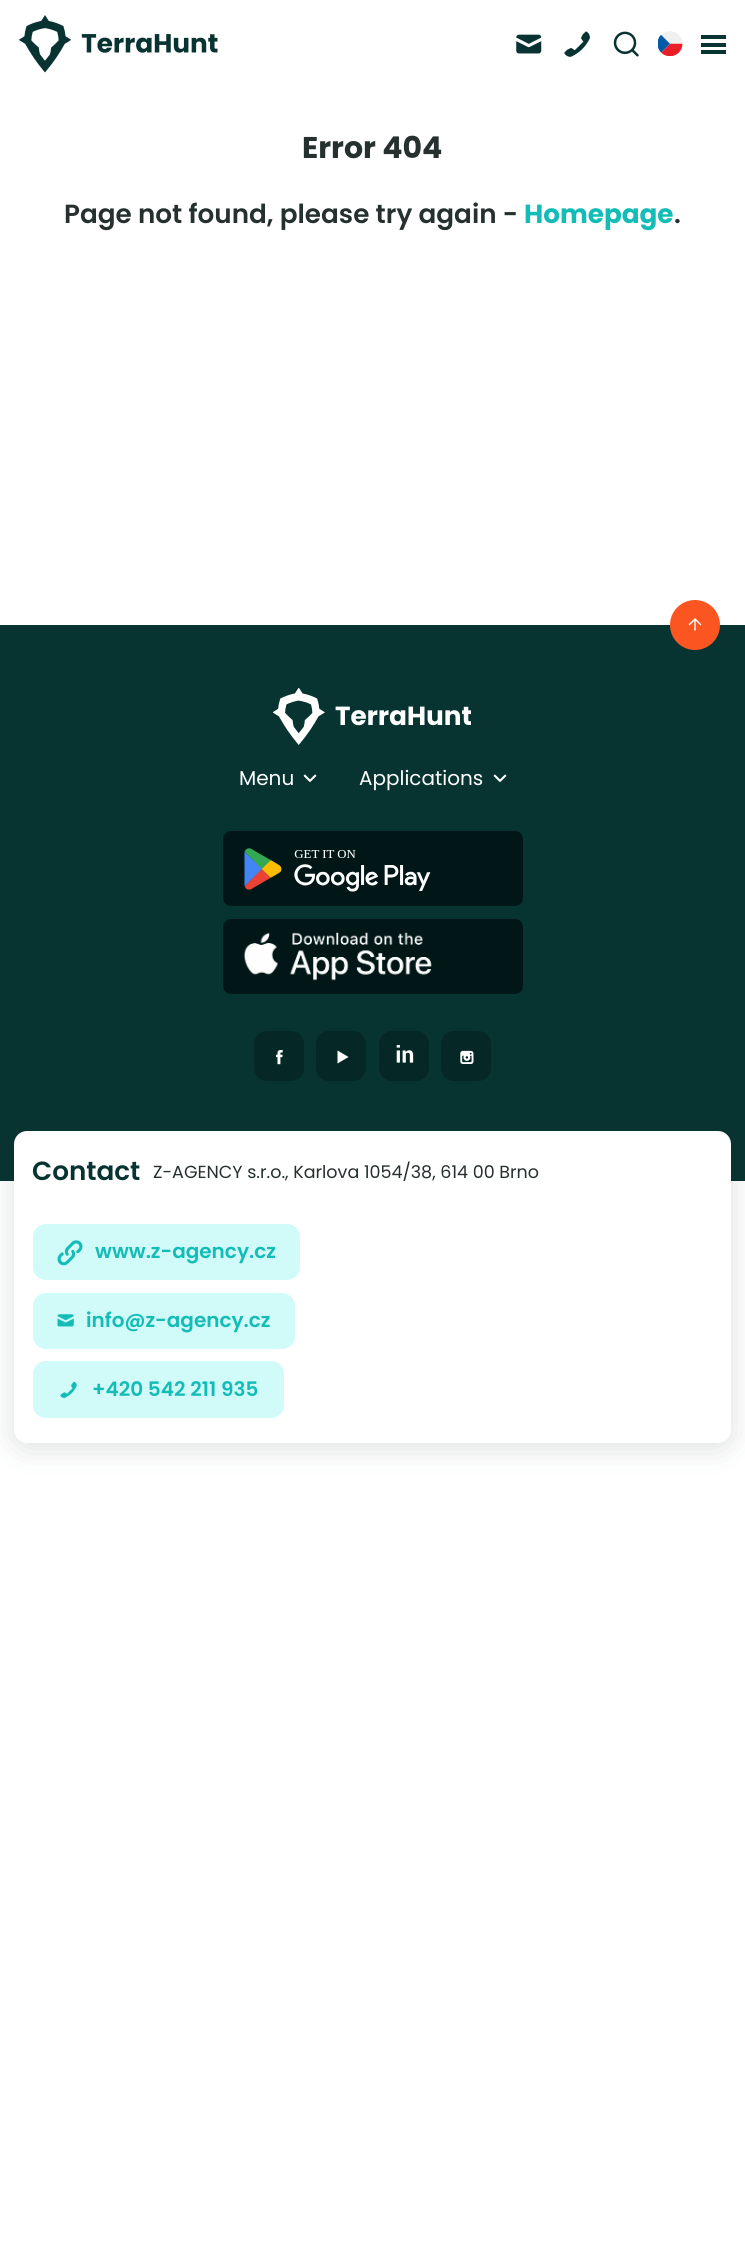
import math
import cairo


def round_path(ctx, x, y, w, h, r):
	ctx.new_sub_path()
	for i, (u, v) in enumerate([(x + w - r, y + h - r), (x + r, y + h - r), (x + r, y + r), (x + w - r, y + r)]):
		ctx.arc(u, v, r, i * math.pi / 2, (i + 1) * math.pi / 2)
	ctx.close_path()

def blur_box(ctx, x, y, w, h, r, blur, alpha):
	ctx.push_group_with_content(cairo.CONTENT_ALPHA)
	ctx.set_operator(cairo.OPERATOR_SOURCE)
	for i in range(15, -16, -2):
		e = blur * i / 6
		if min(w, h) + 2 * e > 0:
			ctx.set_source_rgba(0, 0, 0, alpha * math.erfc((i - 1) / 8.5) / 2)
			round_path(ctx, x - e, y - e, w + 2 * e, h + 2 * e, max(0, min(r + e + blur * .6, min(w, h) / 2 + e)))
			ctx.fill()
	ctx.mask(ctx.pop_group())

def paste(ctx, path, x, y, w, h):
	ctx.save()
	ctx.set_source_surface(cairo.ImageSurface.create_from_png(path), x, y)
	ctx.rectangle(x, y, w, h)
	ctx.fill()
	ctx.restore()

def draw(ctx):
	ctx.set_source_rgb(1, 1, 1)
	ctx.paint()
	paste(ctx, 'media/1.png', 19, 15, 199, 58)
	paste(ctx, 'media/2.png', 516, 34, 26, 20)
	paste(ctx, 'media/3.png', 564, 31, 26, 26)
	paste(ctx, 'media/4.png', 613, 31, 26, 26)
	paste(ctx, 'media/5.png', 658, 31, 25, 25)
	ctx.set_source_rgb(0.031, 0.2, 0.192)
	ctx.rectangle(701, 43, 25, 4)
	ctx.rectangle(701, 35, 25, 4)
	ctx.rectangle(701, 50, 25, 4)
	ctx.fill()
	ctx.select_font_face('Poppins', cairo.FONT_SLANT_NORMAL, cairo.FONT_WEIGHT_BOLD)
	ctx.set_font_size(30)
	ctx.set_source_rgb(0.145, 0.188, 0.184)
	ctx.move_to(302, 158)
	ctx.show_text('Error 404')
	ctx.select_font_face('Poppins SemiBold')
	ctx.set_font_size(26.25)
	ctx.move_to(64, 223)
	ctx.show_text('Page not found, please try again -')
	ctx.select_font_face('Poppins', cairo.FONT_SLANT_NORMAL, cairo.FONT_WEIGHT_BOLD)
	ctx.set_source_rgb(0.082, 0.737, 0.718)
	ctx.move_to(524, 223)
	ctx.show_text('Homepage')
	ctx.select_font_face('Poppins SemiBold')
	ctx.set_source_rgb(0.145, 0.188, 0.184)
	ctx.move_to(674, 223)
	ctx.show_text('.')
	ctx.set_source_rgb(0.031, 0.2, 0.192)
	ctx.rectangle(0, 625, 745, 556)
	ctx.fill()
	ctx.set_source_rgb(0.984, 0.337, 0.133)
	ctx.arc(695, 625, 25, 0, 2 * math.pi)
	ctx.fill()
	paste(ctx, 'media/6.png', 688, 618, 14, 13)
	paste(ctx, 'media/7.png', 273, 688, 198, 57)
	ctx.select_font_face('Poppins')
	ctx.set_font_size(20)
	ctx.set_source_rgb(1, 1, 1)
	ctx.move_to(239, 785)
	ctx.show_text('Menu')
	paste(ctx, 'media/8.png', 303, 774, 14, 8)
	ctx.move_to(359, 785)
	ctx.show_text('Applications')
	paste(ctx, 'media/8.png', 493, 774, 14, 8)
	ctx.set_source_rgb(0.004, 0.09, 0.09)
	round_path(ctx, 223, 831, 300, 75, 8)
	ctx.fill()
	paste(ctx, 'media/9.png', 244, 848, 187, 44)
	round_path(ctx, 223, 919, 300, 75, 8)
	ctx.fill()
	paste(ctx, 'media/10.png', 243, 932, 189, 49)
	ctx.set_source_rgb(0.02, 0.153, 0.149)
	round_path(ctx, 254, 1031, 50, 50, 13)
	ctx.fill()
	paste(ctx, 'media/11.png', 276, 1050, 7, 15)
	round_path(ctx, 316, 1031, 50, 50, 13)
	ctx.fill()
	ctx.set_source_rgb(1, 1, 1)
	ctx.new_path()
	ctx.move_to(348.5, 1057)
	ctx.line_to(337.5, 1063.5)
	ctx.line_to(337.5, 1050.5)
	ctx.close_path()
	ctx.fill()
	ctx.set_source_rgb(0.02, 0.153, 0.149)
	round_path(ctx, 379, 1031, 50, 50, 13)
	ctx.fill()
	paste(ctx, 'media/12.png', 396, 1045, 18, 18)
	round_path(ctx, 441, 1031, 50, 50, 13)
	ctx.fill()
	paste(ctx, 'media/13.png', 460, 1050, 14, 14)
	ctx.set_source_rgb(0.161, 0.212, 0.208)
	blur_box(ctx, 14, 1136, 717, 312, 13, 15, 0.16)
	ctx.set_source_rgb(1, 1, 1)
	round_path(ctx, 14, 1131, 717, 312, 13)
	ctx.fill()
	ctx.select_font_face('Poppins SemiBold')
	ctx.set_font_size(26.25)
	ctx.set_source_rgb(0.031, 0.2, 0.192)
	ctx.move_to(32, 1180)
	ctx.show_text('Contact')
	ctx.select_font_face('Poppins')
	ctx.set_font_size(17.5)
	ctx.set_source_rgb(0.145, 0.188, 0.184)
	ctx.move_to(153, 1178)
	ctx.show_text('Z-AGENCY s.r.o., Karlova 1054/38, 614 00 Brno')
	ctx.set_source_rgb(0.816, 0.984, 0.976)
	round_path(ctx, 33, 1224, 267, 56, 13)
	ctx.fill()
	paste(ctx, 'media/14.png', 57, 1240, 26, 26)
	ctx.select_font_face('Poppins SemiBold')
	ctx.set_font_size(20)
	ctx.set_source_rgb(0.082, 0.737, 0.718)
	ctx.move_to(95, 1258)
	ctx.show_text('www.z-agency.cz')
	ctx.set_source_rgb(0.816, 0.984, 0.976)
	round_path(ctx, 33, 1293, 262, 56, 13)
	ctx.fill()
	paste(ctx, 'media/15.png', 57, 1314, 17, 13)
	ctx.set_source_rgb(0.082, 0.737, 0.718)
	ctx.move_to(86, 1327)
	ctx.show_text('info@z-agency.cz')
	ctx.set_source_rgb(0.816, 0.984, 0.976)
	round_path(ctx, 33, 1361, 251, 57, 13)
	ctx.fill()
	paste(ctx, 'media/16.png', 60, 1381, 17, 17)
	ctx.set_source_rgb(0.082, 0.737, 0.718)
	ctx.move_to(92, 1396)
	ctx.show_text('+420 542 211 935')


surface = cairo.ImageSurface(cairo.FORMAT_RGB24, 745, 2246)
ctx = cairo.Context(surface)
options = cairo.FontOptions()
options.set_hint_metrics(cairo.HINT_METRICS_OFF)
options.set_hint_style(cairo.HINT_STYLE_NONE)
ctx.set_font_options(options)
ctx.set_miter_limit(4)
draw(ctx)
surface.write_to_png('image.png')
